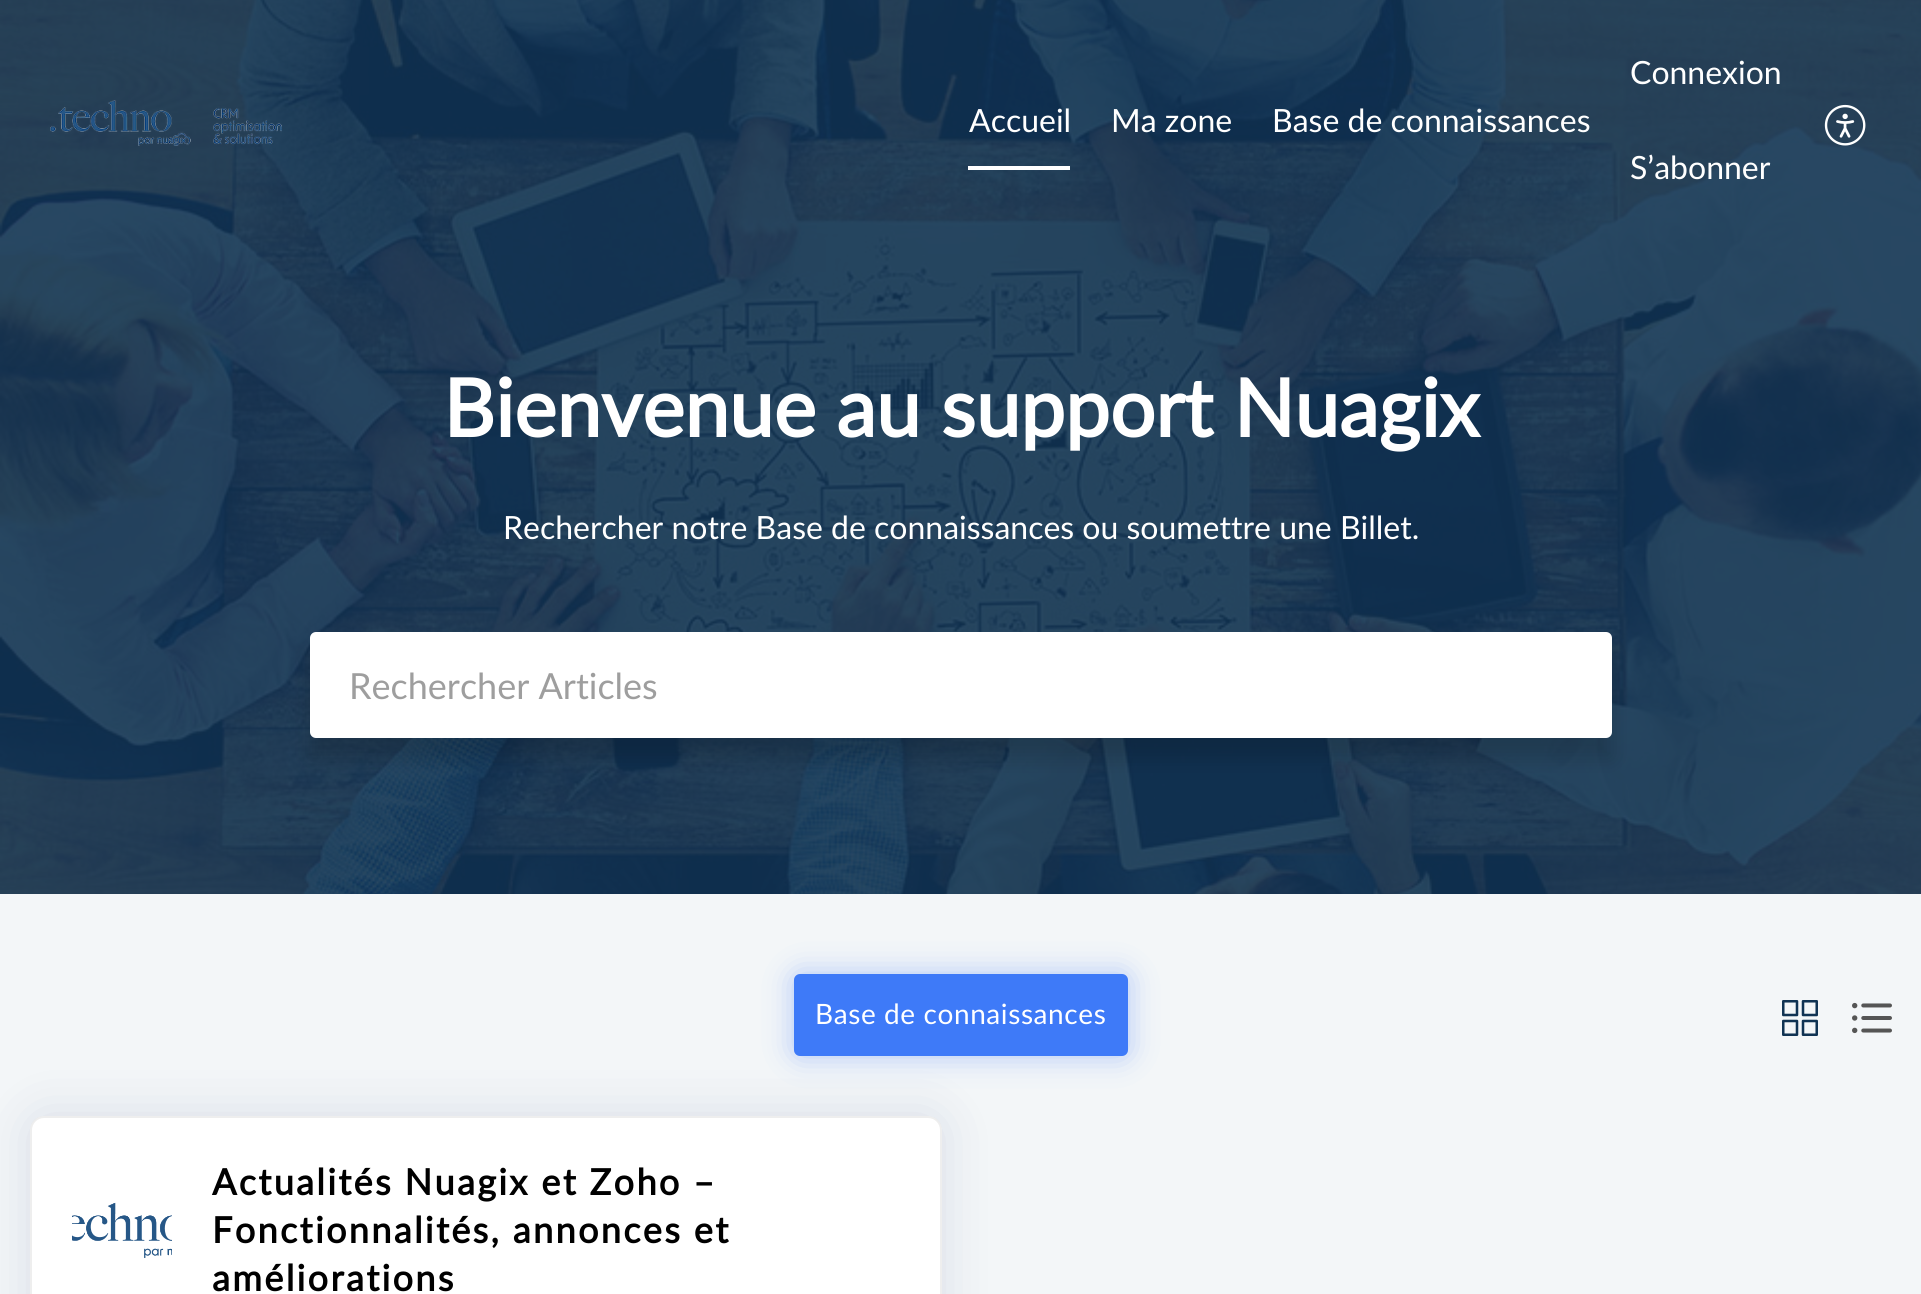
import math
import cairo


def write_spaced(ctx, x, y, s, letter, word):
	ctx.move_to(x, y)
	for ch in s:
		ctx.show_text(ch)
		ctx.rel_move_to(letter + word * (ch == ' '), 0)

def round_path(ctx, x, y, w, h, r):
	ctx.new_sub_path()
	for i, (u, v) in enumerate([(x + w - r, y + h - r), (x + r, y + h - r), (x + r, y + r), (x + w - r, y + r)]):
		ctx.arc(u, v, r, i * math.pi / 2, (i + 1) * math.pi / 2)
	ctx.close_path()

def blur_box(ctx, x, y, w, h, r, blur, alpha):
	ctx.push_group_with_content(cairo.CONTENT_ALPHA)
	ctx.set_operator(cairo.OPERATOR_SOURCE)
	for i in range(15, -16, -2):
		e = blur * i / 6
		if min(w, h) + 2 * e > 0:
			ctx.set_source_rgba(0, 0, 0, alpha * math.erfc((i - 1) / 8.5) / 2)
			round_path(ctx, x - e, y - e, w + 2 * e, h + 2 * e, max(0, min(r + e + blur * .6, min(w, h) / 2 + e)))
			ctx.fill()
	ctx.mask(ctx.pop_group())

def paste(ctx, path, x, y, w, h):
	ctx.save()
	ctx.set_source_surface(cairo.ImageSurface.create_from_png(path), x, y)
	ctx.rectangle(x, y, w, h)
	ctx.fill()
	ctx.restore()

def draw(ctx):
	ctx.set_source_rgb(0.953, 0.961, 0.969)
	ctx.paint()
	paste(ctx, 'media/1.png', 0, 0, 1921, 894)
	paste(ctx, 'media/2.png', 50, 100, 232, 46)
	ctx.set_source_rgb(1, 1, 1)
	ctx.rectangle(968, 166, 102, 4)
	ctx.fill()
	ctx.select_font_face('Lato')
	ctx.set_font_size(32)
	for x, y, s in [
		(969, 132, 'Accueil'),
		(1111, 132, 'Ma zone'),
		(1272, 132, 'Base de connaissances'),
		(1630, 84, 'Connexion'),
		(1630, 179, 'S’abonner'),
	]:
		ctx.move_to(x, y)
		ctx.show_text(s)
	paste(ctx, 'media/3.png', 1824, 104, 42, 42)
	ctx.select_font_face('Lato', cairo.FONT_SLANT_NORMAL, cairo.FONT_WEIGHT_BOLD)
	ctx.set_font_size(80)
	ctx.move_to(443, 437)
	ctx.show_text('Bienvenue au support Nuagix')
	ctx.select_font_face('Lato')
	ctx.set_font_size(32)
	ctx.move_to(503, 539)
	ctx.show_text('Rechercher notre Base de connaissances ou soumettre une Billet.')
	ctx.set_source_rgb(0, 0, 0)
	blur_box(ctx, 310, 652, 1302, 106, 0, 10, 0.16)
	ctx.set_source_rgb(1, 1, 1)
	round_path(ctx, 310, 632, 1302, 106, 6)
	ctx.fill()
	ctx.set_font_size(36)
	ctx.set_source_rgb(0.62, 0.62, 0.62)
	ctx.move_to(349, 699)
	ctx.show_text('Rechercher Articles')
	ctx.set_source_rgb(0.243, 0.478, 0.969)
	blur_box(ctx, 794, 974, 334, 82, 6, 15, 0.38)
	ctx.set_source_rgb(0.243, 0.478, 0.969)
	round_path(ctx, 794, 974, 334, 82, 6)
	ctx.fill()
	ctx.set_font_size(28)
	ctx.set_source_rgb(1, 1, 1)
	write_spaced(ctx, 815, 1024, 'Base de connaissances', 0.6, 0)
	paste(ctx, 'media/4.png', 1782, 1000, 36, 36)
	paste(ctx, 'media/5.png', 1852, 1002, 40, 32)
	ctx.set_source_rgb(0.592, 0.627, 0.749)
	blur_box(ctx, 30, 1116, 912, 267, 14, 25, 0.3)
	ctx.set_source_rgb(1, 1, 1)
	ctx.new_path()
	ctx.move_to(44, 1116)
	ctx.line_to(928, 1116)
	ctx.curve_to(935.5, 1116, 942, 1122.5, 942, 1130)
	ctx.line_to(942, 1294)
	ctx.line_to(30, 1294)
	ctx.line_to(30, 1130)
	ctx.curve_to(30, 1122.5, 36.5, 1116, 44, 1116)
	ctx.close_path()
	ctx.fill()
	round_path(ctx, 31, 1117, 910, 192, 13)
	ctx.set_source_rgba(0, 0, 0, 0.07)
	ctx.stroke()
	paste(ctx, 'media/6.png', 72, 1202, 100, 56)
	ctx.select_font_face('Lato', cairo.FONT_SLANT_NORMAL, cairo.FONT_WEIGHT_BOLD)
	ctx.set_font_size(36)
	ctx.set_source_rgb(0, 0, 0)
	for x, y, s in [
		(212, 1195, 'Actualités Nuagix et Zoho –'),
		(212, 1243, 'Fonctionnalités, annonces et'),
		(212, 1291, 'améliorations'),
	]:
		write_spaced(ctx, x, y, s, 2.4, 0)


surface = cairo.ImageSurface(cairo.FORMAT_RGB24, 1921, 1294)
ctx = cairo.Context(surface)
options = cairo.FontOptions()
options.set_hint_metrics(cairo.HINT_METRICS_OFF)
options.set_hint_style(cairo.HINT_STYLE_NONE)
ctx.set_font_options(options)
ctx.set_miter_limit(4)
draw(ctx)
surface.write_to_png('image.png')
